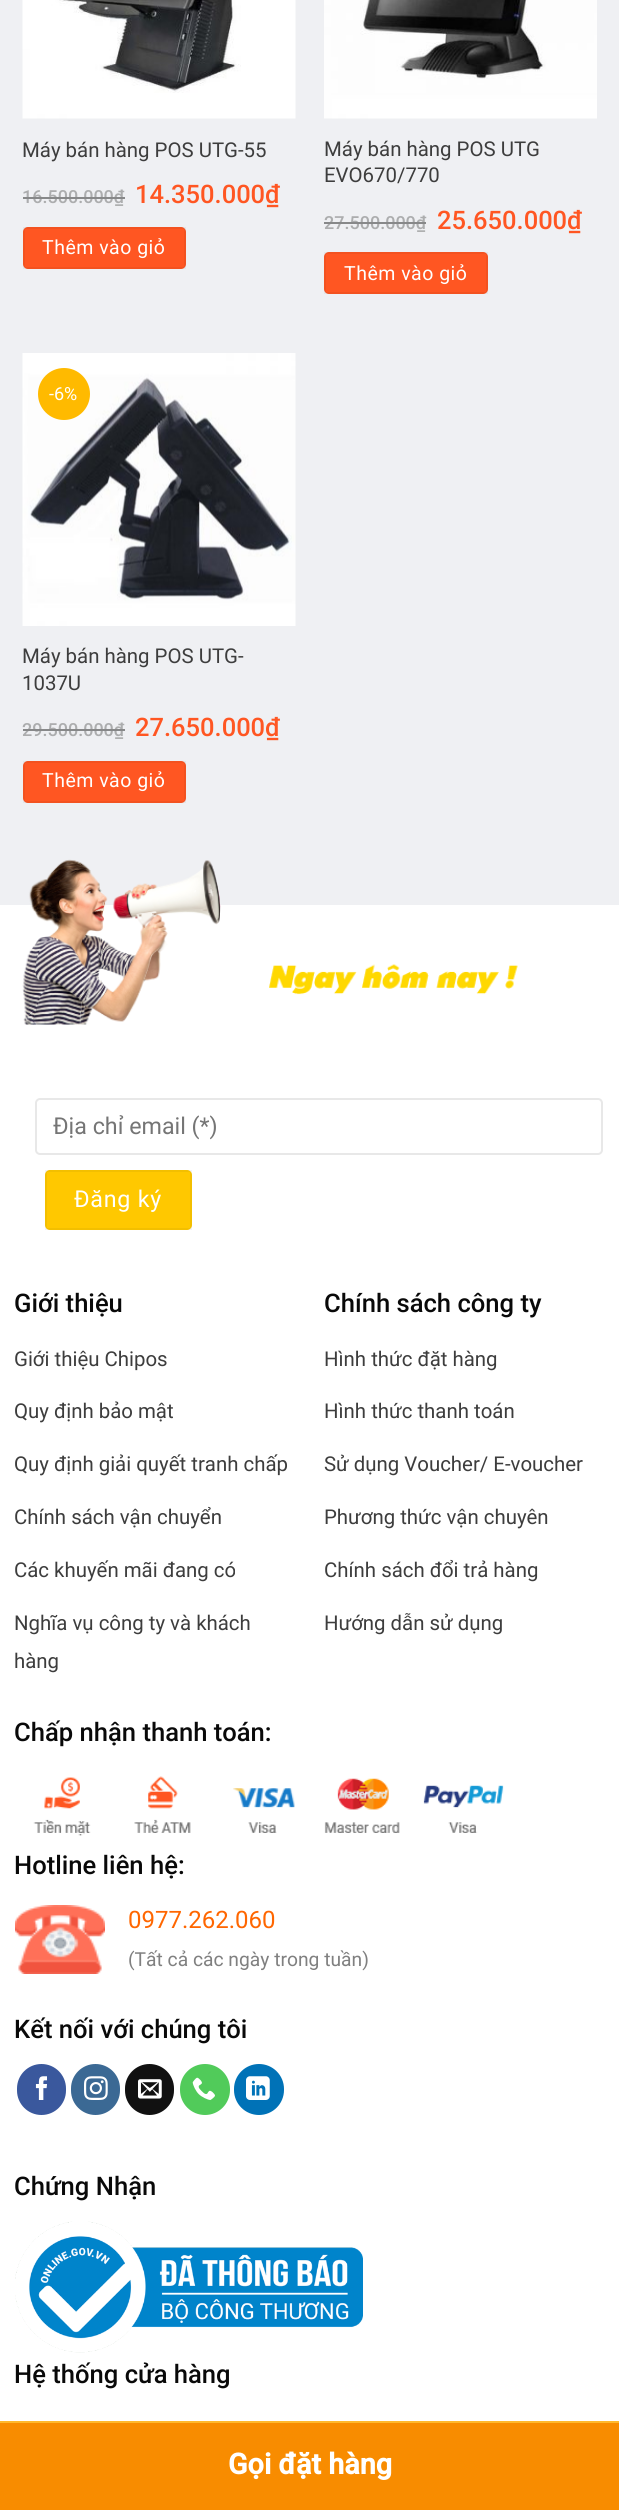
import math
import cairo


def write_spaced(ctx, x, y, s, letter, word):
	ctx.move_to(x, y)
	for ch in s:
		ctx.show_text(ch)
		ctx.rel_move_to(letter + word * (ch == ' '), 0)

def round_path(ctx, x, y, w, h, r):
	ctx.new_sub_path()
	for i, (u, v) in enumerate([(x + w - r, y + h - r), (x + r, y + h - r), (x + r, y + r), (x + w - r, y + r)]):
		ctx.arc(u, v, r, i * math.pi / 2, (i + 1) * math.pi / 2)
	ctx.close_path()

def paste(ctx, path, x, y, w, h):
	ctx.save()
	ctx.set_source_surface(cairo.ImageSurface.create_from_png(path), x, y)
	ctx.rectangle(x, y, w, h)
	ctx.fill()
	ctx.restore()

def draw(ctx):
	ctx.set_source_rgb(1, 1, 1)
	ctx.paint()
	ctx.set_source_rgb(0.937, 0.941, 0.953)
	ctx.rectangle(0, 0, 619, 905)
	ctx.fill()
	paste(ctx, 'media/1.png', 22, 0, 274, 119)
	ctx.select_font_face('Roboto')
	ctx.set_font_size(20.4)
	ctx.set_source_rgb(0.239, 0.239, 0.239)
	ctx.move_to(22, 157)
	ctx.show_text('Máy bán hàng POS UTG-55')
	ctx.select_font_face('Roboto Medium')
	ctx.set_font_size(18)
	ctx.set_source_rgb(0.675, 0.678, 0.682)
	ctx.move_to(22, 203)
	ctx.show_text('16.500.000₫')
	ctx.set_source_rgb(0.529, 0.533, 0.537)
	ctx.rectangle(23, 197, 102, 2)
	ctx.fill()
	ctx.set_font_size(25.5)
	ctx.set_source_rgb(1, 0.337, 0.133)
	ctx.move_to(135, 203)
	ctx.show_text('14.350.000₫')
	round_path(ctx, 23, 227, 163, 42, 5)
	ctx.fill()
	ctx.rectangle(24, 228, 161, 40)
	ctx.set_source_rgba(0, 0, 0, 0.05)
	ctx.stroke()
	ctx.select_font_face('Roboto')
	ctx.set_font_size(19.5)
	ctx.set_source_rgb(1, 1, 1)
	write_spaced(ctx, 42, 254, 'Thêm vào giỏ', 0.5, 0)
	paste(ctx, 'media/2.png', 324, 0, 273, 119)
	ctx.set_font_size(20.4)
	ctx.set_source_rgb(0.239, 0.239, 0.239)
	ctx.move_to(324, 156)
	ctx.show_text('Máy bán hàng POS UTG')
	ctx.move_to(324, 182)
	ctx.show_text('EVO670/770')
	ctx.select_font_face('Roboto Medium')
	ctx.set_font_size(18)
	ctx.set_source_rgb(0.675, 0.678, 0.682)
	ctx.move_to(324, 229)
	ctx.show_text('27.500.000₫')
	ctx.set_source_rgb(0.529, 0.533, 0.537)
	ctx.rectangle(324, 222, 102, 2)
	ctx.fill()
	ctx.set_font_size(25.5)
	ctx.set_source_rgb(1, 0.337, 0.133)
	ctx.move_to(437, 229)
	ctx.show_text('25.650.000₫')
	round_path(ctx, 324, 252, 164, 42, 5)
	ctx.fill()
	ctx.rectangle(325, 253, 162, 40)
	ctx.set_source_rgba(0, 0, 0, 0.05)
	ctx.stroke()
	ctx.select_font_face('Roboto')
	ctx.set_font_size(19.5)
	ctx.set_source_rgb(1, 1, 1)
	write_spaced(ctx, 344, 280, 'Thêm vào giỏ', 0.5, 0)
	paste(ctx, 'media/3.png', 22, 353, 274, 273)
	ctx.set_source_rgb(1, 0.729, 0)
	ctx.arc(64, 394, 26, 0, 2 * math.pi)
	ctx.fill()
	ctx.set_font_size(18)
	ctx.set_source_rgb(1, 1, 1)
	ctx.move_to(49, 400)
	ctx.show_text('-6%')
	ctx.set_font_size(20.4)
	ctx.set_source_rgb(0.239, 0.239, 0.239)
	ctx.move_to(22, 663)
	ctx.show_text('Máy bán hàng POS UTG-')
	ctx.move_to(22, 690)
	ctx.show_text('1037U')
	ctx.select_font_face('Roboto Medium')
	ctx.set_font_size(18)
	ctx.set_source_rgb(0.675, 0.678, 0.682)
	ctx.move_to(22, 736)
	ctx.show_text('29.500.000₫')
	ctx.set_source_rgb(0.529, 0.533, 0.537)
	ctx.rectangle(23, 729, 102, 2)
	ctx.fill()
	ctx.set_font_size(25.5)
	ctx.set_source_rgb(1, 0.337, 0.133)
	ctx.move_to(135, 736)
	ctx.show_text('27.650.000₫')
	round_path(ctx, 23, 761, 163, 42, 5)
	ctx.fill()
	ctx.rectangle(24, 762, 161, 40)
	ctx.set_source_rgba(0, 0, 0, 0.05)
	ctx.stroke()
	ctx.select_font_face('Roboto')
	ctx.set_font_size(19.5)
	ctx.set_source_rgb(1, 1, 1)
	write_spaced(ctx, 42, 787, 'Thêm vào giỏ', 0.5, 0)
	paste(ctx, 'media/4.png', 22, 859, 496, 166)
	round_path(ctx, 36, 1099, 566, 55, 4)
	ctx.set_source_rgb(0.91, 0.91, 0.91)
	ctx.stroke()
	ctx.set_font_size(23.25)
	ctx.set_source_rgb(0.459, 0.459, 0.459)
	ctx.move_to(53, 1134)
	ctx.show_text('Địa chỉ email (*)')
	ctx.set_source_rgb(1, 0.784, 0)
	round_path(ctx, 45, 1170, 147, 60, 5)
	ctx.fill()
	ctx.rectangle(46, 1171, 145, 58)
	ctx.set_source_rgba(0, 0, 0, 0.05)
	ctx.stroke()
	ctx.set_source_rgb(1, 1, 1)
	write_spaced(ctx, 74, 1207, 'Đăng ký', 0.75, 0)
	ctx.select_font_face('Roboto Medium')
	ctx.set_font_size(25.6)
	ctx.set_source_rgb(0.039, 0.039, 0.039)
	ctx.move_to(14, 1312)
	ctx.show_text('Giới thiệu')
	ctx.select_font_face('Roboto')
	ctx.set_font_size(20.4)
	ctx.set_source_rgb(0.239, 0.239, 0.239)
	for x, y, s in [
		(14, 1366, 'Giới thiệu Chipos'),
		(14, 1418, 'Quy định bảo mật'),
		(14, 1471, 'Quy định giải quyết tranh chấp'),
		(14, 1524, 'Chính sách vận chuyển'),
		(14, 1577, 'Các khuyến mãi đang có'),
		(14, 1630, 'Nghĩa vụ công ty và khách'),
		(14, 1668, 'hàng'),
	]:
		ctx.move_to(x, y)
		ctx.show_text(s)
	ctx.select_font_face('Roboto Medium')
	ctx.set_font_size(25.6)
	ctx.set_source_rgb(0.039, 0.039, 0.039)
	ctx.move_to(324, 1312)
	ctx.show_text('Chính sách công ty')
	ctx.select_font_face('Roboto')
	ctx.set_font_size(20.4)
	ctx.set_source_rgb(0.239, 0.239, 0.239)
	for x, y, s in [
		(324, 1366, 'Hình thức đặt hàng'),
		(324, 1418, 'Hình thức thanh toán'),
		(324, 1471, 'Sử dụng Voucher/ E-voucher'),
		(324, 1524, 'Phương thức vận chuyên'),
		(324, 1577, 'Chính sách đổi trả hàng'),
		(324, 1630, 'Hướng dẫn sử dụng'),
	]:
		ctx.move_to(x, y)
		ctx.show_text(s)
	ctx.select_font_face('Roboto Medium')
	ctx.set_font_size(25.6)
	ctx.set_source_rgb(0.039, 0.039, 0.039)
	ctx.move_to(14, 1741)
	ctx.show_text('Chấp nhận thanh toán:')
	paste(ctx, 'media/5.png', 33, 1776, 471, 60)
	ctx.move_to(14, 1874)
	ctx.show_text('Hotline liên hệ:')
	paste(ctx, 'media/6.png', 15, 1905, 90, 69)
	ctx.select_font_face('Roboto')
	ctx.set_font_size(24)
	ctx.set_source_rgb(1, 0.4, 0)
	ctx.move_to(128, 1928)
	ctx.show_text('0977.262.060')
	ctx.set_font_size(19.25)
	ctx.set_source_rgb(0.502, 0.502, 0.502)
	ctx.move_to(128, 1966)
	ctx.show_text('(Tất cả các ngày trong tuần)')
	ctx.select_font_face('Roboto Medium')
	ctx.set_font_size(25.6)
	ctx.set_source_rgb(0.039, 0.039, 0.039)
	ctx.move_to(14, 2038)
	ctx.show_text('Kết nối với chúng tôi')
	ctx.set_source_rgb(0.227, 0.345, 0.616)
	round_path(ctx, 18, 2065, 47, 49, 23.5)
	ctx.fill_preserve()
	ctx.stroke()
	paste(ctx, 'media/7.png', 35, 2076, 12, 24)
	ctx.set_source_rgb(0.231, 0.412, 0.58)
	round_path(ctx, 72, 2065, 47, 49, 23.5)
	ctx.fill_preserve()
	ctx.stroke()
	paste(ctx, 'media/8.png', 84, 2076, 24, 24)
	ctx.set_source_rgb(0.067, 0.067, 0.067)
	round_path(ctx, 126, 2065, 47, 49, 23.5)
	ctx.fill_preserve()
	ctx.stroke()
	paste(ctx, 'media/9.png', 138, 2079, 24, 20)
	ctx.set_source_rgb(0.318, 0.796, 0.353)
	round_path(ctx, 181, 2065, 48, 49, 24)
	ctx.fill_preserve()
	ctx.stroke()
	paste(ctx, 'media/10.png', 192, 2077, 23, 23)
	ctx.set_source_rgb(0, 0.447, 0.718)
	round_path(ctx, 235, 2065, 48, 49, 24)
	ctx.fill_preserve()
	ctx.stroke()
	paste(ctx, 'media/11.png', 246, 2076, 24, 24)
	ctx.set_source_rgb(0.039, 0.039, 0.039)
	ctx.move_to(14, 2195)
	ctx.show_text('Chứng Nhận')
	paste(ctx, 'media/12.png', 15, 2221, 348, 132)
	ctx.move_to(14, 2383)
	ctx.show_text('Hệ thống cửa hàng')
	ctx.set_source_rgb(0.969, 0.549, 0)
	ctx.rectangle(0, 2423, 619, 87)
	ctx.fill()
	ctx.set_source_rgb(1, 0.725, 0.176)
	ctx.rectangle(0, 2421, 619, 2)
	ctx.fill()
	ctx.select_font_face('Roboto', cairo.FONT_SLANT_NORMAL, cairo.FONT_WEIGHT_BOLD)
	ctx.set_font_size(28.75)
	ctx.set_source_rgb(1, 1, 1)
	ctx.move_to(228, 2474)
	ctx.show_text('Gọi đặt hàng')


surface = cairo.ImageSurface(cairo.FORMAT_RGB24, 619, 2510)
ctx = cairo.Context(surface)
options = cairo.FontOptions()
options.set_hint_metrics(cairo.HINT_METRICS_OFF)
options.set_hint_style(cairo.HINT_STYLE_NONE)
ctx.set_font_options(options)
ctx.set_miter_limit(4)
draw(ctx)
surface.write_to_png('image.png')
